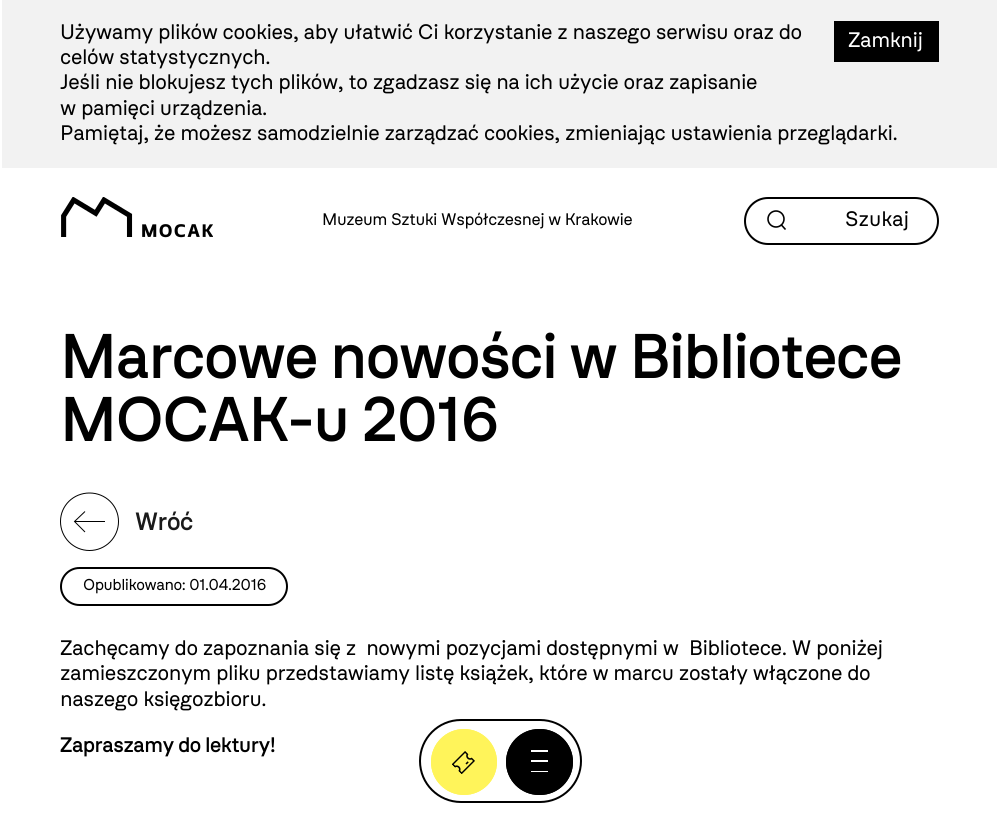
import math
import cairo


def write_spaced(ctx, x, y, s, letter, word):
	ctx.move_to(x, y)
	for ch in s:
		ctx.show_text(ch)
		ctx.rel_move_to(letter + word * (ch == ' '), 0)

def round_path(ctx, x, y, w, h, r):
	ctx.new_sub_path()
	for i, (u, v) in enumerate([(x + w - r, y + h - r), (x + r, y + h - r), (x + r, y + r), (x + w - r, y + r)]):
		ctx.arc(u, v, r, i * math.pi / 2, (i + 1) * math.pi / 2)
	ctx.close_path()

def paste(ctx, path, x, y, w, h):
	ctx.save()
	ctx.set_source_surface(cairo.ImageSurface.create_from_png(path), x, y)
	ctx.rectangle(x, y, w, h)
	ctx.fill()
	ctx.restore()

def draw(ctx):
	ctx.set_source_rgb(1, 1, 1)
	ctx.paint()
	ctx.set_source_rgb(0.949, 0.949, 0.949)
	ctx.rectangle(2, 0, 995, 168)
	ctx.fill()
	ctx.select_font_face('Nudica')
	ctx.set_font_size(21)
	ctx.set_source_rgb(0, 0, 0)
	for x, y, s in [
		(60, 39, 'Używamy plików cookies, aby ułatwić Ci korzystanie z naszego serwisu oraz do'),
		(60, 64, 'celów statystycznych.'),
		(60, 89, 'Jeśli nie blokujesz tych plików, to zgadzasz się na ich użycie oraz zapisanie'),
		(60, 115, 'w pamięci urządzenia.'),
		(60, 140, 'Pamiętaj, że możesz samodzielnie zarządzać cookies, zmieniając ustawienia przeglądarki.'),
	]:
		write_spaced(ctx, x, y, s, -0.42, 0)
	ctx.rectangle(834, 21, 105, 41)
	ctx.fill()
	ctx.set_source_rgb(1, 1, 1)
	write_spaced(ctx, 848, 47, 'Zamknij', -0.42, 0)
	paste(ctx, 'media/1.png', 61, 197, 152, 41)
	ctx.set_font_size(16.75)
	ctx.set_source_rgb(0, 0, 0)
	write_spaced(ctx, 322, 225, 'Muzeum Sztuki Współczesnej w Krakowie', -0.42, 0)
	ctx.new_path()
	ctx.arc(776, 219, 8, 0, 2 * math.pi)
	ctx.set_line_width(1.6)
	ctx.stroke()
	ctx.new_path()
	ctx.move_to(781, 224.5)
	ctx.line_to(785.5, 229.5)
	ctx.stroke()
	round_path(ctx, 745, 198, 193, 46, 23)
	ctx.set_line_width(2)
	ctx.stroke()
	ctx.set_font_size(21)
	ctx.move_to(845, 226)
	ctx.show_text('Szukaj')
	ctx.select_font_face('Nudica Medium')
	ctx.set_font_size(63)
	write_spaced(ctx, 60, 378, 'Marcowe nowości w Bibliotece', -1.25, 0)
	write_spaced(ctx, 60, 441, 'MOCAK-u 2016', -1.25, 0)
	ctx.new_path()
	ctx.move_to(89.5, 550.5)
	ctx.curve_to(73.5, 550.5, 60.5, 537.5, 60.5, 521.5)
	ctx.curve_to(60.5, 505.5, 73.5, 493, 89.5, 493)
	ctx.curve_to(105.5, 493, 118.5, 505.5, 118.5, 521.5)
	ctx.curve_to(118.5, 537.5, 105.5, 550.5, 89.5, 550.5)
	ctx.close_path()
	ctx.set_line_width(1)
	ctx.stroke()
	ctx.rectangle(75, 521, 30, 1)
	ctx.fill()
	ctx.new_path()
	ctx.move_to(85, 532)
	ctx.line_to(74.5, 521.5)
	ctx.line_to(85, 511.5)
	ctx.stroke()
	ctx.set_font_size(25)
	ctx.set_source_rgb(0.102, 0.102, 0.102)
	write_spaced(ctx, 135, 530, 'Wróć', -0.42, 0)
	round_path(ctx, 61, 568, 226, 37, 18.5)
	ctx.set_source_rgb(0, 0, 0)
	ctx.set_line_width(2)
	ctx.stroke()
	ctx.select_font_face('Nudica')
	ctx.set_font_size(15.75)
	write_spaced(ctx, 83, 590, 'Opublikowano: 01.04.2016', -0.42, 0)
	ctx.set_font_size(21)
	for x, y, s in [
		(60, 655, 'Zachęcamy do zapoznania się z  nowymi pozycjami dostępnymi w'),
		(689, 655, 'Bibliotece. W poniżej'),
		(60, 680, 'zamieszczonym pliku przedstawiamy listę książek, które w marcu zostały włączone do'),
		(60, 706, 'naszego księgozbioru.'),
	]:
		write_spaced(ctx, x, y, s, -0.42, 0)
	ctx.select_font_face('Nudica Medium')
	write_spaced(ctx, 60, 752, 'Zapraszamy do lektury!', -0.42, 0)
	round_path(ctx, 420, 720, 161, 82, 41)
	ctx.stroke()
	ctx.set_source_rgb(1, 0.957, 0.353)
	ctx.arc(464, 762, 33, 0, 2 * math.pi)
	ctx.fill()
	paste(ctx, 'media/2.png', 452, 751, 23, 23)
	ctx.arc(464, 762, 31.5, 0, 2 * math.pi)
	ctx.set_line_width(3)
	ctx.stroke()
	ctx.set_source_rgb(0, 0, 0)
	round_path(ctx, 506, 729, 67, 66, 33)
	ctx.fill()
	ctx.set_source_rgb(1, 1, 1)
	ctx.rectangle(531, 771, 17, 1)
	ctx.rectangle(531, 760, 17, 2)
	ctx.rectangle(531, 750, 17, 2)
	ctx.fill()
	round_path(ctx, 507.5, 730.5, 64, 63, 31.5)
	ctx.set_source_rgb(0, 0, 0)
	ctx.stroke()


surface = cairo.ImageSurface(cairo.FORMAT_RGB24, 997, 823)
ctx = cairo.Context(surface)
options = cairo.FontOptions()
options.set_hint_metrics(cairo.HINT_METRICS_OFF)
options.set_hint_style(cairo.HINT_STYLE_NONE)
ctx.set_font_options(options)
ctx.set_miter_limit(4)
draw(ctx)
surface.write_to_png('image.png')
